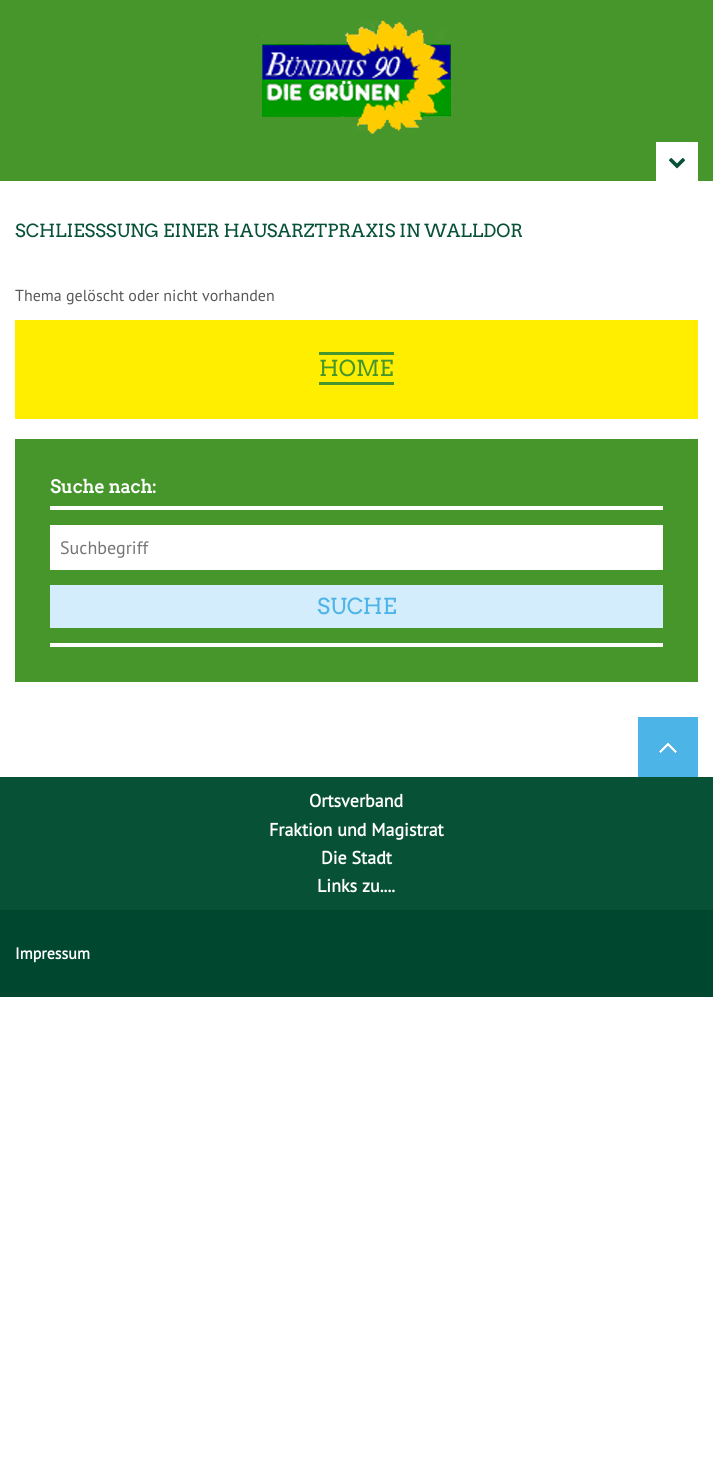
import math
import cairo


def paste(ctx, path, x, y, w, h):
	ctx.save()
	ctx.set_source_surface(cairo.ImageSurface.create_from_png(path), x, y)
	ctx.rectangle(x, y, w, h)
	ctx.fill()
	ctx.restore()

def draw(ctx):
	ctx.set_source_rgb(1, 1, 1)
	ctx.paint()
	ctx.set_source_rgb(0.275, 0.588, 0.169)
	ctx.rectangle(0, 0, 713, 181)
	ctx.fill()
	paste(ctx, 'media/1.png', 262, 20, 189, 114)
	ctx.set_source_rgb(1, 1, 1)
	ctx.rectangle(656, 142, 42, 39)
	ctx.fill()
	paste(ctx, 'media/2.png', 668, 158, 18, 11)
	ctx.select_font_face('Arvo')
	ctx.set_font_size(18)
	ctx.set_source_rgb(0.031, 0.318, 0.212)
	ctx.move_to(15, 237)
	ctx.show_text('SCHLIESSSUNG EINER HAUSARZTPRAXIS IN WALLDOR')
	ctx.select_font_face('PT Sans')
	ctx.set_font_size(16)
	ctx.set_source_rgb(0.345, 0.345, 0.353)
	ctx.move_to(15, 301)
	ctx.show_text('Thema gelöscht oder nicht vorhanden')
	ctx.set_source_rgb(1, 0.933, 0)
	ctx.rectangle(15, 320, 683, 99)
	ctx.fill()
	ctx.select_font_face('Arvo')
	ctx.set_font_size(22)
	ctx.set_source_rgb(0.275, 0.588, 0.169)
	ctx.move_to(319, 376)
	ctx.show_text('HOME')
	ctx.rectangle(319, 352, 75, 3)
	ctx.rectangle(319, 382, 75, 3)
	ctx.rectangle(15, 439, 683, 243)
	ctx.fill()
	ctx.select_font_face('Arvo', cairo.FONT_SLANT_NORMAL, cairo.FONT_WEIGHT_BOLD)
	ctx.set_font_size(18)
	ctx.set_source_rgb(1, 1, 1)
	ctx.move_to(50, 493)
	ctx.show_text('Suche nach:')
	ctx.rectangle(50, 506, 613, 4)
	ctx.rectangle(50, 643, 613, 4)
	ctx.rectangle(50, 525, 613, 45)
	ctx.fill()
	ctx.select_font_face('PT Sans')
	ctx.set_source_rgb(0.459, 0.459, 0.459)
	ctx.move_to(60, 554)
	ctx.show_text('Suchbegriff')
	ctx.set_source_rgb(0.831, 0.929, 0.988)
	ctx.rectangle(50, 585, 613, 43)
	ctx.fill()
	ctx.select_font_face('Arvo')
	ctx.set_font_size(22)
	ctx.set_source_rgb(0.298, 0.706, 0.906)
	ctx.move_to(317, 614)
	ctx.show_text('SUCHE')
	paste(ctx, 'media/3.png', 638, 717, 60, 60)
	ctx.set_source_rgb(0.031, 0.318, 0.212)
	ctx.rectangle(0, 777, 713, 133)
	ctx.fill()
	ctx.select_font_face('PT Sans', cairo.FONT_SLANT_NORMAL, cairo.FONT_WEIGHT_BOLD)
	ctx.set_font_size(18)
	ctx.set_source_rgb(1, 1, 1)
	for x, y, s in [
		(309, 807, 'Ortsverband'),
		(269, 836, 'Fraktion und Magistrat'),
		(321, 864, 'Die Stadt'),
		(317, 892, 'Links zu....'),
	]:
		ctx.move_to(x, y)
		ctx.show_text(s)
	ctx.set_source_rgb(0, 0.278, 0.184)
	ctx.rectangle(0, 910, 713, 87)
	ctx.fill()
	ctx.set_font_size(16)
	ctx.set_source_rgb(1, 1, 1)
	ctx.move_to(15, 959)
	ctx.show_text('Impressum')


surface = cairo.ImageSurface(cairo.FORMAT_RGB24, 713, 1459)
ctx = cairo.Context(surface)
options = cairo.FontOptions()
options.set_hint_metrics(cairo.HINT_METRICS_OFF)
options.set_hint_style(cairo.HINT_STYLE_NONE)
ctx.set_font_options(options)
ctx.set_miter_limit(4)
draw(ctx)
surface.write_to_png('image.png')
